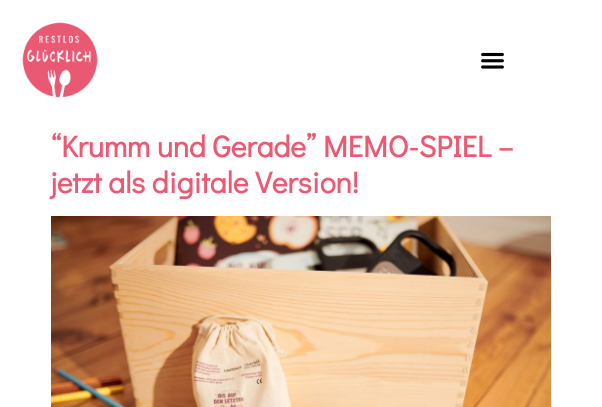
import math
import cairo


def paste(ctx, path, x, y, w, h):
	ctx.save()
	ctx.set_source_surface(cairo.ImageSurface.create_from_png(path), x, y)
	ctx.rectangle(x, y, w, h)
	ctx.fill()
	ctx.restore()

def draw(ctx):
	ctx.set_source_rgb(1, 1, 1)
	ctx.paint()
	paste(ctx, 'media/1.png', 22, 22, 76, 76)
	paste(ctx, 'media/2.png', 481, 52, 23, 17)
	ctx.select_font_face('Didact Gothic', cairo.FONT_SLANT_NORMAL, cairo.FONT_WEIGHT_BOLD)
	ctx.set_font_size(30)
	ctx.set_source_rgb(0.918, 0.349, 0.451)
	ctx.move_to(51, 157)
	ctx.show_text('“Krumm und Gerade” MEMO-SPIEL –')
	ctx.move_to(51, 193)
	ctx.show_text('jetzt als digitale Version!')
	paste(ctx, 'media/3.png', 51, 216, 500, 191)


surface = cairo.ImageSurface(cairo.FORMAT_RGB24, 602, 407)
ctx = cairo.Context(surface)
options = cairo.FontOptions()
options.set_hint_metrics(cairo.HINT_METRICS_OFF)
options.set_hint_style(cairo.HINT_STYLE_NONE)
ctx.set_font_options(options)
ctx.set_miter_limit(4)
draw(ctx)
surface.write_to_png('image.png')
